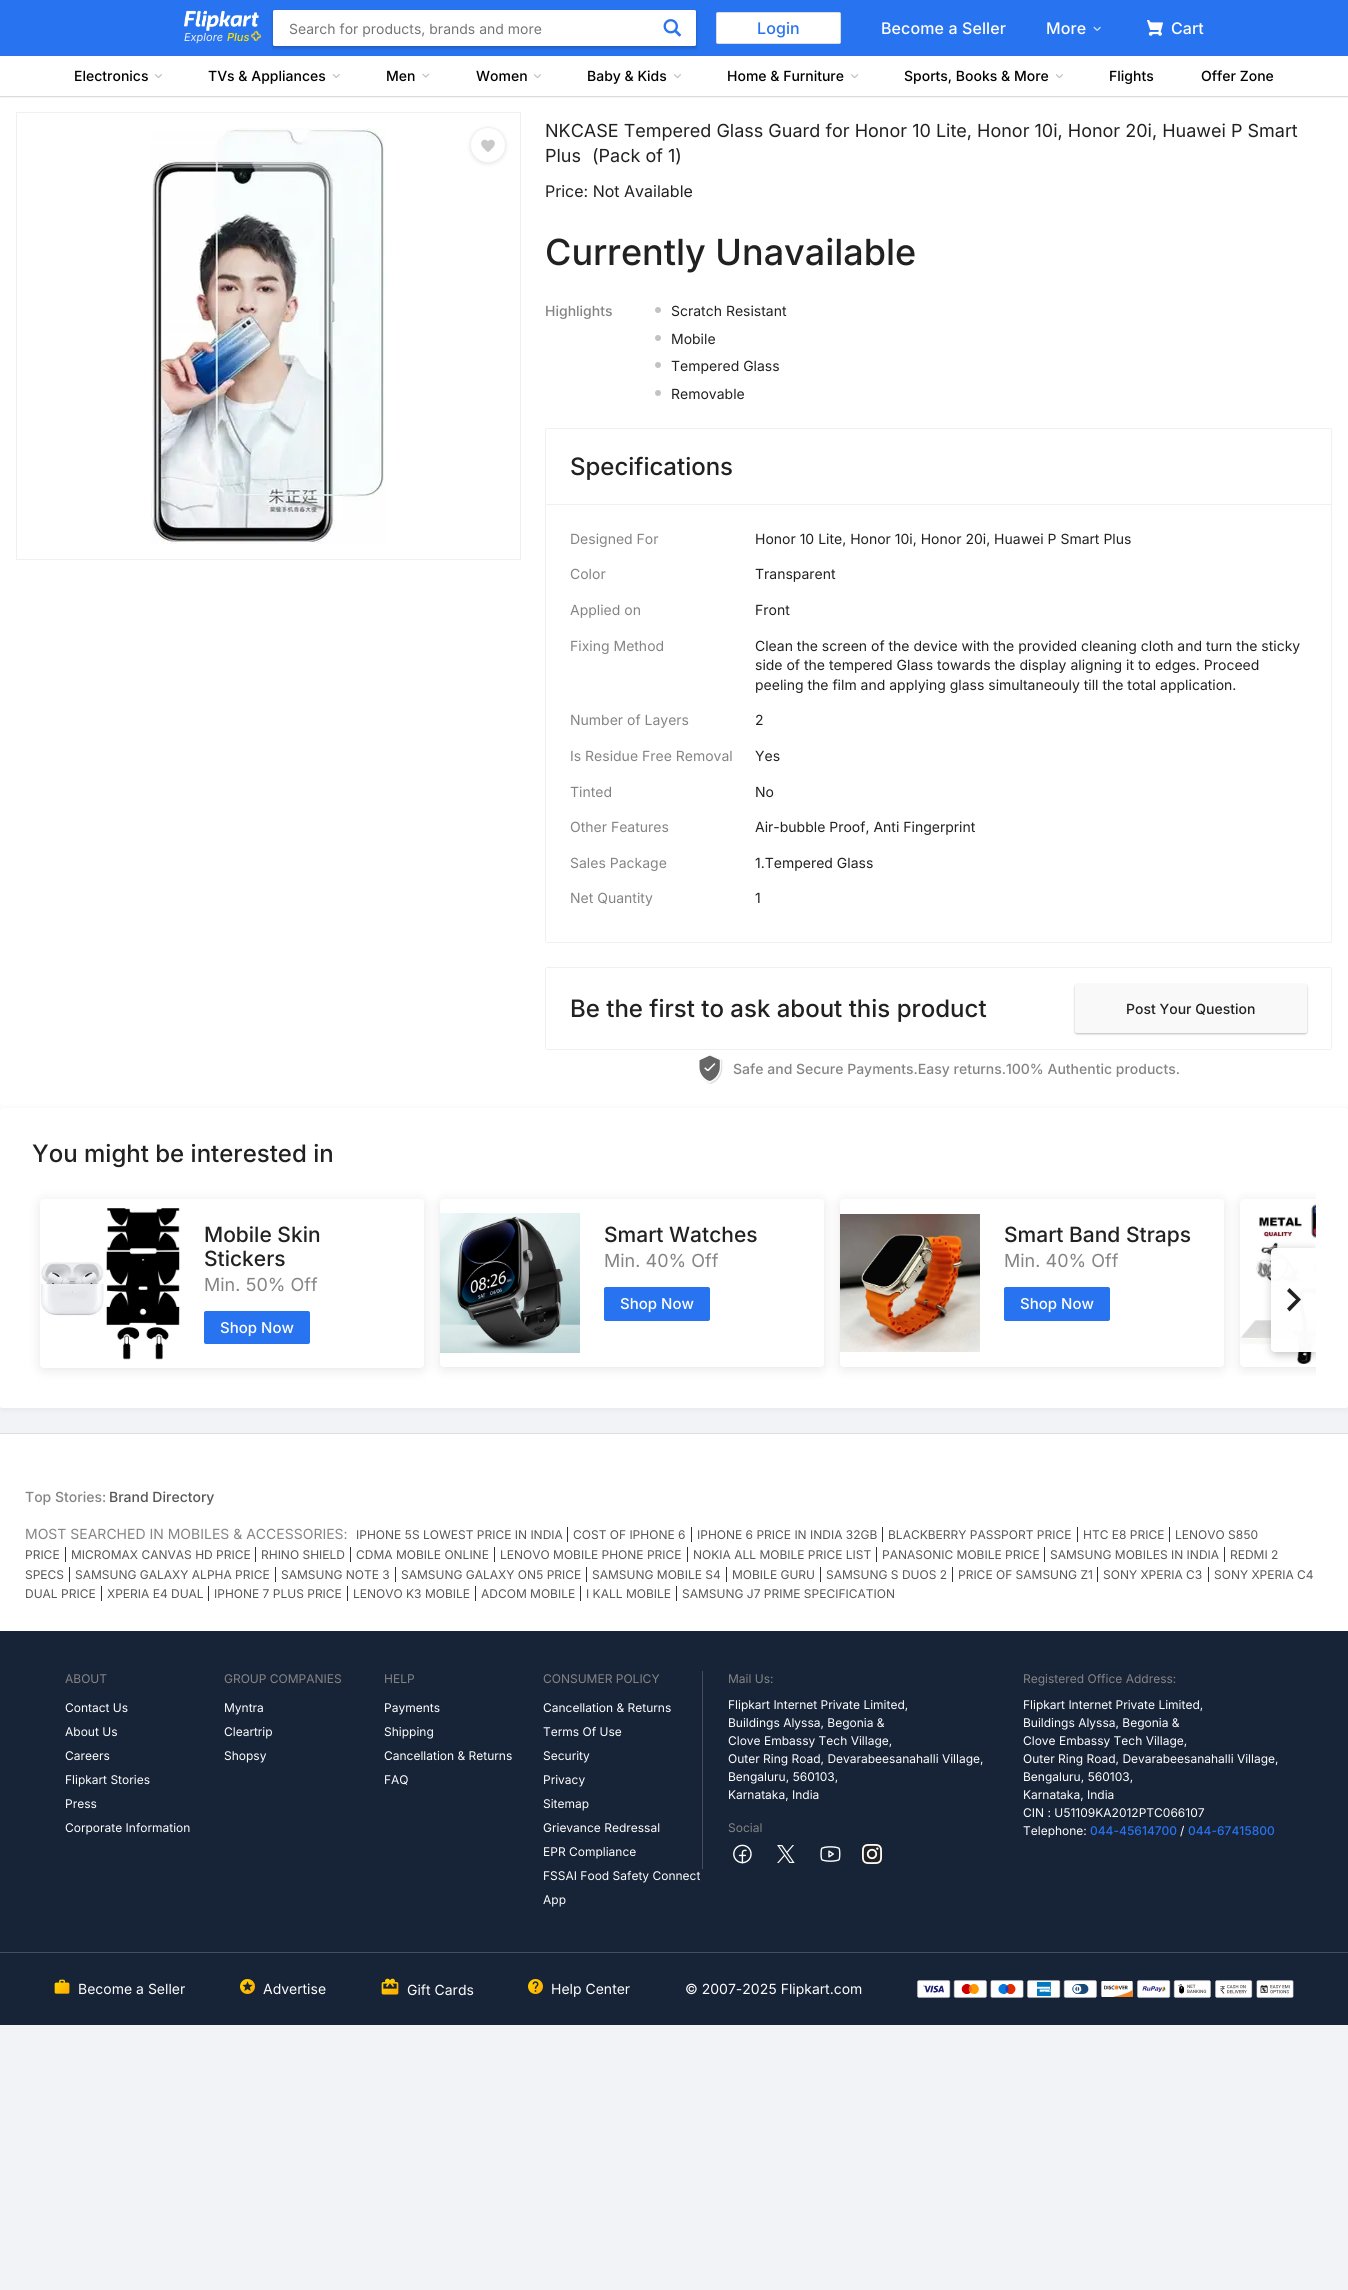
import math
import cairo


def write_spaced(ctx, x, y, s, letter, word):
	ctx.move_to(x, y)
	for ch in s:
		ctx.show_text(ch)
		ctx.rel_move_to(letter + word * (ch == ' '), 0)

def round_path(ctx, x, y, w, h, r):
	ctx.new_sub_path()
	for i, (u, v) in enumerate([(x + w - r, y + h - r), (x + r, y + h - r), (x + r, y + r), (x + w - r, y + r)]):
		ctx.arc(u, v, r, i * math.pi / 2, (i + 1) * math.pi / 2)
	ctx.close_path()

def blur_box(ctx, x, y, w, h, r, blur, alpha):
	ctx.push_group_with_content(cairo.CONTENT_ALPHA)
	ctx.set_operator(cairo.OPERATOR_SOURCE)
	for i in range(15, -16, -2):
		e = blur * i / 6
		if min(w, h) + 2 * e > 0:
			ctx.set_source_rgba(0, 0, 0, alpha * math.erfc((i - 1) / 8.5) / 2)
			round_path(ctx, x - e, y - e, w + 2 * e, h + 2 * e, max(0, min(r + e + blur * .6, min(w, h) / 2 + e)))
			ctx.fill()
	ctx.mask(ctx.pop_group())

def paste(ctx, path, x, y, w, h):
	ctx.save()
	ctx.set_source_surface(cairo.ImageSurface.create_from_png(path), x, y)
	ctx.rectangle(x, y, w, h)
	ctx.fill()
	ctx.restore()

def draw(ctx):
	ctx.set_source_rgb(0.945, 0.953, 0.965)
	ctx.paint()
	ctx.set_source_rgb(1, 1, 1)
	ctx.rectangle(0, 96, 1348, 1012)
	ctx.fill()
	ctx.set_source_rgb(0, 0, 0)
	blur_box(ctx, 0, 57, 1348, 40, 0, 0.5, 0.16)
	ctx.set_source_rgb(0.157, 0.455, 0.941)
	ctx.rectangle(0, 0, 1348, 56)
	ctx.fill()
	ctx.set_source_rgb(0, 0, 0)
	blur_box(ctx, 273, 12, 423, 36, 0, 2, 0.23)
	ctx.set_source_rgb(1, 1, 1)
	round_path(ctx, 273, 10, 423, 36, 2)
	ctx.fill()
	ctx.new_path()
	ctx.move_to(275, 10)
	ctx.line_to(654, 10)
	ctx.line_to(654, 46)
	ctx.line_to(275, 46)
	ctx.curve_to(274, 46, 273, 45, 273, 44)
	ctx.line_to(273, 12)
	ctx.curve_to(273, 11, 274, 10, 275, 10)
	ctx.close_path()
	ctx.fill()
	ctx.select_font_face('Inter')
	ctx.set_font_size(14)
	ctx.set_source_rgb(0.459, 0.459, 0.459)
	ctx.move_to(289, 34)
	ctx.show_text('Search for products, brands and more')
	ctx.set_source_rgb(1, 1, 1)
	round_path(ctx, 654.5, 10.5, 41, 35, 1.5)
	ctx.fill_preserve()
	ctx.set_line_width(1)
	ctx.stroke()
	paste(ctx, 'media/1.png', 663, 19, 19, 18)
	round_path(ctx, 716.5, 12.5, 124, 31, 1.5)
	ctx.fill_preserve()
	ctx.set_source_rgb(0.859, 0.859, 0.859)
	ctx.stroke()
	ctx.select_font_face('Inter Medium')
	ctx.set_font_size(16)
	ctx.set_source_rgb(0.157, 0.455, 0.941)
	write_spaced(ctx, 757, 34, 'Login', 0.1, 0)
	ctx.set_source_rgb(1, 1, 1)
	write_spaced(ctx, 881, 34, 'Become a Seller', 0.1, 0)
	write_spaced(ctx, 1046, 34, 'More', 0.1, 0)
	paste(ctx, 'media/2.png', 1093, 26, 8, 5)
	paste(ctx, 'media/3.png', 1147, 20, 16, 16)
	write_spaced(ctx, 1171, 34, 'Cart', 0.1, 0)
	paste(ctx, 'media/4.png', 184, 10, 75, 21)
	ctx.select_font_face('Inter', cairo.FONT_SLANT_ITALIC)
	ctx.set_font_size(11)
	ctx.set_source_rgb(0.941, 0.941, 0.941)
	ctx.move_to(184, 41)
	ctx.show_text('Explore')
	ctx.select_font_face('Inter Medium', cairo.FONT_SLANT_ITALIC)
	ctx.set_source_rgb(1, 0.898, 0)
	ctx.move_to(227, 41)
	ctx.show_text('Plus')
	paste(ctx, 'media/5.png', 251, 30, 10, 11)
	ctx.set_source_rgb(1, 1, 1)
	ctx.rectangle(0, 56, 1348, 40)
	ctx.fill()
	ctx.select_font_face('Inter Medium')
	ctx.set_font_size(14)
	ctx.set_source_rgb(0, 0, 0)
	ctx.move_to(74, 81)
	ctx.show_text('Electronics')
	paste(ctx, 'media/6.png', 154, 74, 8, 5)
	ctx.move_to(208, 81)
	ctx.show_text('TVs & Appliances')
	paste(ctx, 'media/7.png', 332, 74, 8, 4)
	ctx.move_to(386, 81)
	ctx.show_text('Men')
	paste(ctx, 'media/8.png', 422, 73, 8, 5)
	ctx.move_to(476, 81)
	ctx.show_text('Women')
	paste(ctx, 'media/9.png', 534, 74, 7, 5)
	ctx.move_to(587, 81)
	ctx.show_text('Baby & Kids')
	paste(ctx, 'media/10.png', 673, 74, 8, 5)
	ctx.move_to(727, 81)
	ctx.show_text('Home & Furniture')
	paste(ctx, 'media/11.png', 851, 74, 8, 5)
	ctx.move_to(904, 81)
	ctx.show_text('Sports, Books & More')
	paste(ctx, 'media/12.png', 1056, 74, 7, 5)
	ctx.move_to(1109, 81)
	ctx.show_text('Flights')
	ctx.move_to(1201, 81)
	ctx.show_text('Offer Zone')
	ctx.rectangle(16.5, 112.5, 504, 447)
	ctx.set_source_rgb(0.941, 0.941, 0.941)
	ctx.stroke()
	paste(ctx, 'media/13.png', 151, 128, 235, 416)
	ctx.set_source_rgb(0, 0, 0)
	blur_box(ctx, 470, 128, 36, 36, 18, 2, 0.1)
	ctx.set_source_rgb(1, 1, 1)
	ctx.arc(488, 145, 17.5, 0, 2 * math.pi)
	ctx.fill_preserve()
	ctx.set_source_rgb(0.941, 0.941, 0.941)
	ctx.stroke()
	paste(ctx, 'media/14.png', 480, 139, 16, 14)
	ctx.select_font_face('Inter')
	ctx.set_font_size(18)
	ctx.set_source_rgb(0.129, 0.129, 0.129)
	for x, y, s in [
		(545, 137, 'NKCASE Tempered Glass Guard for Honor 10 Lite, Honor 10i, Honor 20i, Huawei P Smart'),
		(545, 162, 'Plus'),
		(592, 162, '(Pack of 1)'),
	]:
		ctx.move_to(x, y)
		ctx.show_text(s)
	ctx.set_font_size(16)
	ctx.move_to(545, 197)
	ctx.show_text('Price: Not Available')
	ctx.select_font_face('Inter Medium')
	ctx.set_font_size(36)
	ctx.move_to(545, 265)
	ctx.show_text('Currently Unavailable')
	ctx.set_font_size(14)
	ctx.set_source_rgb(0.518, 0.518, 0.518)
	ctx.move_to(545, 316)
	ctx.show_text('Highlights')
	ctx.set_source_rgb(0.761, 0.761, 0.761)
	ctx.new_path()
	ctx.arc(658, 310, 3, 0, 2 * math.pi)
	ctx.fill()
	ctx.select_font_face('Inter')
	ctx.set_source_rgb(0.129, 0.129, 0.129)
	ctx.move_to(671, 316)
	ctx.show_text('Scratch Resistant')
	ctx.set_source_rgb(0.761, 0.761, 0.761)
	ctx.new_path()
	ctx.arc(658, 338, 3, 0, 2 * math.pi)
	ctx.fill()
	ctx.set_source_rgb(0.129, 0.129, 0.129)
	ctx.move_to(671, 344)
	ctx.show_text('Mobile')
	ctx.set_source_rgb(0.761, 0.761, 0.761)
	ctx.new_path()
	ctx.arc(658, 365, 3, 0, 2 * math.pi)
	ctx.fill()
	ctx.set_source_rgb(0.129, 0.129, 0.129)
	ctx.move_to(671, 371)
	ctx.show_text('Tempered Glass')
	ctx.set_source_rgb(0.761, 0.761, 0.761)
	ctx.new_path()
	ctx.arc(658, 393, 3, 0, 2 * math.pi)
	ctx.fill()
	ctx.set_source_rgb(0.129, 0.129, 0.129)
	ctx.move_to(671, 399)
	ctx.show_text('Removable')
	round_path(ctx, 545.5, 428.5, 786, 514, 1.5)
	ctx.set_source_rgb(0.941, 0.941, 0.941)
	ctx.stroke()
	ctx.select_font_face('Inter Medium')
	ctx.set_font_size(24)
	ctx.set_source_rgb(0.129, 0.129, 0.129)
	ctx.move_to(570, 475)
	ctx.show_text('Specifications')
	ctx.set_source_rgb(0.941, 0.941, 0.941)
	ctx.rectangle(546, 504, 785, 1)
	ctx.fill()
	ctx.select_font_face('Inter')
	ctx.set_font_size(14)
	ctx.set_source_rgb(0.518, 0.518, 0.518)
	ctx.move_to(570, 544)
	ctx.show_text('Designed For')
	ctx.set_source_rgb(0.129, 0.129, 0.129)
	ctx.move_to(755, 544)
	ctx.show_text('Honor 10 Lite, Honor 10i, Honor 20i, Huawei P Smart Plus')
	ctx.set_source_rgb(0.518, 0.518, 0.518)
	ctx.move_to(570, 579)
	ctx.show_text('Color')
	ctx.set_source_rgb(0.129, 0.129, 0.129)
	ctx.move_to(755, 579)
	ctx.show_text('Transparent')
	ctx.set_source_rgb(0.518, 0.518, 0.518)
	ctx.move_to(570, 615)
	ctx.show_text('Applied on')
	ctx.set_source_rgb(0.129, 0.129, 0.129)
	ctx.move_to(755, 615)
	ctx.show_text('Front')
	ctx.set_source_rgb(0.518, 0.518, 0.518)
	ctx.move_to(570, 651)
	ctx.show_text('Fixing Method')
	ctx.set_source_rgb(0.129, 0.129, 0.129)
	for x, y, s in [
		(755, 651, 'Clean the screen of the device with the provided cleaning cloth and turn the sticky'),
		(755, 670, 'side of the tempered Glass towards the display aligning it to edges. Proceed'),
		(755, 690, 'peeling the film and applying glass simultaneouly till the total application.'),
	]:
		ctx.move_to(x, y)
		ctx.show_text(s)
	ctx.set_source_rgb(0.518, 0.518, 0.518)
	ctx.move_to(570, 725)
	ctx.show_text('Number of Layers')
	ctx.set_source_rgb(0.129, 0.129, 0.129)
	ctx.move_to(755, 725)
	ctx.show_text('2')
	ctx.set_source_rgb(0.518, 0.518, 0.518)
	ctx.move_to(570, 761)
	ctx.show_text('Is Residue Free Removal')
	ctx.set_source_rgb(0.129, 0.129, 0.129)
	ctx.move_to(755, 761)
	ctx.show_text('Yes')
	ctx.set_source_rgb(0.518, 0.518, 0.518)
	ctx.move_to(570, 797)
	ctx.show_text('Tinted')
	ctx.set_source_rgb(0.129, 0.129, 0.129)
	ctx.move_to(755, 797)
	ctx.show_text('No')
	ctx.set_source_rgb(0.518, 0.518, 0.518)
	ctx.move_to(570, 832)
	ctx.show_text('Other Features')
	ctx.set_source_rgb(0.129, 0.129, 0.129)
	ctx.move_to(755, 832)
	ctx.show_text('Air-bubble Proof, Anti Fingerprint')
	ctx.set_source_rgb(0.518, 0.518, 0.518)
	ctx.move_to(570, 868)
	ctx.show_text('Sales Package')
	ctx.set_source_rgb(0.129, 0.129, 0.129)
	ctx.move_to(755, 868)
	ctx.show_text('1.Tempered Glass')
	ctx.set_source_rgb(0.518, 0.518, 0.518)
	ctx.move_to(570, 903)
	ctx.show_text('Net Quantity')
	ctx.set_source_rgb(0.129, 0.129, 0.129)
	ctx.move_to(755, 903)
	ctx.show_text('1')
	ctx.set_source_rgb(0.941, 0.941, 0.941)
	ctx.rectangle(546, 967, 785, 1)
	ctx.rectangle(1331, 968, 1, 81)
	ctx.rectangle(545, 968, 1, 81)
	ctx.rectangle(546, 1049, 785, 1)
	ctx.fill()
	ctx.select_font_face('Inter Medium')
	ctx.set_font_size(24)
	ctx.set_source_rgb(0.129, 0.129, 0.129)
	ctx.move_to(570, 1017)
	ctx.show_text('Be the first to ask about this product')
	ctx.set_source_rgb(0, 0, 0)
	blur_box(ctx, 1075, 985, 232, 49, 2, 1, 0.26)
	ctx.set_source_rgb(0.976, 0.976, 0.976)
	round_path(ctx, 1075, 984, 232, 49, 2)
	ctx.fill()
	ctx.set_font_size(14)
	ctx.set_source_rgb(0.129, 0.129, 0.129)
	ctx.move_to(1126, 1014)
	ctx.show_text('Post Your Question')
	paste(ctx, 'media/15.png', 699, 1054, 24, 30)
	ctx.set_source_rgb(0.518, 0.518, 0.518)
	ctx.move_to(733, 1074)
	ctx.show_text('Safe and Secure Payments.Easy returns.100% Authentic products.')
	ctx.set_source_rgb(0, 0, 0)
	blur_box(ctx, 0, 1109, 1348, 300, 2, 4, 0.06)
	ctx.set_source_rgb(1, 1, 1)
	round_path(ctx, 0, 1108, 1348, 300, 2)
	ctx.fill()
	ctx.set_font_size(24)
	ctx.set_source_rgb(0.129, 0.129, 0.129)
	ctx.move_to(32, 1162)
	ctx.show_text('You might be interested in')
	ctx.set_source_rgb(0, 0, 0)
	blur_box(ctx, 40, 1201, 384, 169, 4, 6, 0.1)
	ctx.set_source_rgb(1, 1, 1)
	round_path(ctx, 40, 1199, 384, 169, 4)
	ctx.fill()
	paste(ctx, 'media/16.png', 40, 1208, 140, 152)
	ctx.set_font_size(21)
	ctx.set_source_rgb(0.129, 0.129, 0.129)
	ctx.move_to(204, 1242)
	ctx.show_text('Mobile Skin')
	ctx.move_to(204, 1266)
	ctx.show_text('Stickers')
	ctx.select_font_face('Inter')
	ctx.set_font_size(18)
	ctx.set_source_rgb(0.518, 0.518, 0.518)
	ctx.move_to(204, 1291)
	ctx.show_text('Min. 50% Off')
	ctx.set_source_rgb(0.157, 0.455, 0.941)
	round_path(ctx, 204, 1311, 106, 33, 2)
	ctx.fill()
	ctx.select_font_face('Inter Medium')
	ctx.set_font_size(15)
	ctx.set_source_rgb(1, 1, 1)
	ctx.move_to(220, 1333)
	ctx.show_text('Shop Now')
	ctx.set_source_rgb(0, 0, 0)
	blur_box(ctx, 440, 1201, 384, 168, 4, 6, 0.1)
	ctx.set_source_rgb(1, 1, 1)
	round_path(ctx, 440, 1199, 384, 168, 4)
	ctx.fill()
	paste(ctx, 'media/17.png', 440, 1213, 140, 140)
	ctx.set_font_size(21)
	ctx.set_source_rgb(0.129, 0.129, 0.129)
	ctx.move_to(604, 1242)
	ctx.show_text('Smart Watches')
	ctx.select_font_face('Inter')
	ctx.set_font_size(18)
	ctx.set_source_rgb(0.518, 0.518, 0.518)
	ctx.move_to(604, 1267)
	ctx.show_text('Min. 40% Off')
	ctx.set_source_rgb(0.157, 0.455, 0.941)
	round_path(ctx, 604, 1287, 106, 34, 2)
	ctx.fill()
	ctx.select_font_face('Inter Medium')
	ctx.set_font_size(15)
	ctx.set_source_rgb(1, 1, 1)
	ctx.move_to(620, 1309)
	ctx.show_text('Shop Now')
	ctx.set_source_rgb(0, 0, 0)
	blur_box(ctx, 840, 1201, 384, 168, 4, 6, 0.1)
	ctx.set_source_rgb(1, 1, 1)
	round_path(ctx, 840, 1199, 384, 168, 4)
	ctx.fill()
	paste(ctx, 'media/18.png', 840, 1214, 140, 138)
	ctx.set_font_size(21)
	ctx.set_source_rgb(0.129, 0.129, 0.129)
	ctx.move_to(1004, 1242)
	ctx.show_text('Smart Band Straps')
	ctx.select_font_face('Inter')
	ctx.set_font_size(18)
	ctx.set_source_rgb(0.518, 0.518, 0.518)
	ctx.move_to(1004, 1267)
	ctx.show_text('Min. 40% Off')
	ctx.set_source_rgb(0.157, 0.455, 0.941)
	round_path(ctx, 1004, 1287, 106, 34, 2)
	ctx.fill()
	ctx.select_font_face('Inter Medium')
	ctx.set_font_size(15)
	ctx.set_source_rgb(1, 1, 1)
	ctx.move_to(1020, 1309)
	ctx.show_text('Shop Now')
	ctx.save()
	ctx.rectangle(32, 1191, 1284, 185)
	ctx.clip()
	ctx.set_source_rgb(0, 0, 0)
	blur_box(ctx, 1240, 1201, 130, 168, 4, 6, 0.1)
	ctx.restore()
	ctx.new_path()
	ctx.move_to(1244, 1199)
	ctx.line_to(1316, 1199)
	ctx.line_to(1316, 1367)
	ctx.line_to(1244, 1367)
	ctx.curve_to(1242, 1367, 1240, 1365, 1240, 1363)
	ctx.line_to(1240, 1203)
	ctx.curve_to(1240, 1201, 1242, 1199, 1244, 1199)
	ctx.close_path()
	ctx.fill()
	paste(ctx, 'media/19.png', 1240, 1204, 76, 160)
	ctx.save()
	ctx.rectangle(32, 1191, 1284, 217)
	ctx.clip()
	ctx.set_fill_rule(cairo.FILL_RULE_EVEN_ODD)
	ctx.new_path()
	ctx.move_to(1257, 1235)
	ctx.line_to(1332, 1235)
	ctx.line_to(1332, 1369)
	ctx.line_to(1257, 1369)
	ctx.close_path()
	ctx.move_to(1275, 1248)
	ctx.line_to(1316, 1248)
	ctx.line_to(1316, 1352)
	ctx.line_to(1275, 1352)
	ctx.curve_to(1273, 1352, 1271, 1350, 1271, 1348)
	ctx.line_to(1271, 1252)
	ctx.curve_to(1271, 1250, 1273, 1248, 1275, 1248)
	ctx.close_path()
	ctx.clip()
	ctx.set_source_rgb(0, 0, 0)
	blur_box(ctx, 1273, 1251, 43, 102, 3, 5, 0.3)
	ctx.restore()
	ctx.set_source_rgba(1, 1, 1, 0.98)
	ctx.new_path()
	ctx.move_to(1275, 1248)
	ctx.line_to(1316, 1248)
	ctx.line_to(1316, 1352)
	ctx.line_to(1275, 1352)
	ctx.curve_to(1273, 1352, 1271, 1350, 1271, 1348)
	ctx.line_to(1271, 1252)
	ctx.curve_to(1271, 1250, 1273, 1248, 1275, 1248)
	ctx.close_path()
	ctx.fill()
	ctx.set_source_rgb(0.129, 0.129, 0.129)
	ctx.new_path()
	ctx.move_to(1287, 1291)
	ctx.line_to(1296, 1299.5)
	ctx.line_to(1287, 1308.5)
	ctx.line_to(1289.5, 1311.5)
	ctx.line_to(1301, 1299.5)
	ctx.line_to(1289.5, 1288)
	ctx.close_path()
	ctx.fill()
	ctx.set_source_rgb(0.09, 0.137, 0.216)
	ctx.rectangle(0, 1631, 1348, 394)
	ctx.fill()
	ctx.set_source_rgb(0.867, 0.867, 0.867)
	ctx.rectangle(0, 1433, 1348, 1)
	ctx.fill()
	ctx.set_source_rgb(1, 1, 1)
	ctx.rectangle(0, 1434, 1348, 197)
	ctx.fill()
	ctx.set_font_size(14)
	ctx.set_source_rgb(0.518, 0.518, 0.518)
	ctx.move_to(25, 1502)
	ctx.show_text('Top Stories:')
	ctx.set_source_rgb(0.337, 0.337, 0.337)
	ctx.move_to(109, 1502)
	ctx.show_text('Brand Directory')
	ctx.select_font_face('Inter')
	ctx.set_source_rgb(0.518, 0.518, 0.518)
	ctx.move_to(25, 1539)
	ctx.show_text('MOST SEARCHED IN MOBILES & ACCESSORIES:')
	ctx.set_font_size(12)
	ctx.set_source_rgb(0.337, 0.337, 0.337)
	ctx.move_to(356, 1539)
	ctx.show_text('IPHONE 5S LOWEST PRICE IN INDIA')
	ctx.set_source_rgb(0.2, 0.2, 0.2)
	ctx.rectangle(567, 1527, 1, 15)
	ctx.fill()
	ctx.set_source_rgb(0.337, 0.337, 0.337)
	ctx.move_to(573, 1539)
	ctx.show_text('COST OF IPHONE 6')
	ctx.set_source_rgb(0.2, 0.2, 0.2)
	ctx.rectangle(691, 1527, 1, 15)
	ctx.fill()
	ctx.set_source_rgb(0.337, 0.337, 0.337)
	ctx.move_to(697, 1539)
	ctx.show_text('IPHONE 6 PRICE IN INDIA 32GB')
	ctx.set_source_rgb(0.2, 0.2, 0.2)
	ctx.rectangle(882, 1527, 1, 15)
	ctx.fill()
	ctx.set_source_rgb(0.337, 0.337, 0.337)
	ctx.move_to(888, 1539)
	ctx.show_text('BLACKBERRY PASSPORT PRICE')
	ctx.set_source_rgb(0.2, 0.2, 0.2)
	ctx.rectangle(1077, 1527, 1, 15)
	ctx.fill()
	ctx.set_source_rgb(0.337, 0.337, 0.337)
	ctx.move_to(1083, 1539)
	ctx.show_text('HTC E8 PRICE')
	ctx.set_source_rgb(0.2, 0.2, 0.2)
	ctx.rectangle(1169, 1527, 1, 15)
	ctx.fill()
	ctx.set_source_rgb(0.337, 0.337, 0.337)
	ctx.move_to(1175, 1539)
	ctx.show_text('LENOVO S850')
	ctx.move_to(25, 1559)
	ctx.show_text('PRICE')
	ctx.set_source_rgb(0.2, 0.2, 0.2)
	ctx.rectangle(65, 1547, 1, 15)
	ctx.fill()
	ctx.set_source_rgb(0.337, 0.337, 0.337)
	ctx.move_to(71, 1559)
	ctx.show_text('MICROMAX CANVAS HD PRICE')
	ctx.set_source_rgb(0.2, 0.2, 0.2)
	ctx.rectangle(255, 1547, 1, 15)
	ctx.fill()
	ctx.set_source_rgb(0.337, 0.337, 0.337)
	ctx.move_to(261, 1559)
	ctx.show_text('RHINO SHIELD')
	ctx.set_source_rgb(0.2, 0.2, 0.2)
	ctx.rectangle(350, 1547, 1, 15)
	ctx.fill()
	ctx.set_source_rgb(0.337, 0.337, 0.337)
	ctx.move_to(356, 1559)
	ctx.show_text('CDMA MOBILE ONLINE')
	ctx.set_source_rgb(0.2, 0.2, 0.2)
	ctx.rectangle(494, 1547, 1, 15)
	ctx.fill()
	ctx.set_source_rgb(0.337, 0.337, 0.337)
	ctx.move_to(500, 1559)
	ctx.show_text('LENOVO MOBILE PHONE PRICE')
	ctx.set_source_rgb(0.2, 0.2, 0.2)
	ctx.rectangle(687, 1547, 1, 15)
	ctx.fill()
	ctx.set_source_rgb(0.337, 0.337, 0.337)
	ctx.move_to(693, 1559)
	ctx.show_text('NOKIA ALL MOBILE PRICE LIST')
	ctx.set_source_rgb(0.2, 0.2, 0.2)
	ctx.rectangle(876, 1547, 1, 15)
	ctx.fill()
	ctx.set_source_rgb(0.337, 0.337, 0.337)
	ctx.move_to(882, 1559)
	ctx.show_text('PANASONIC MOBILE PRICE')
	ctx.set_source_rgb(0.2, 0.2, 0.2)
	ctx.rectangle(1044, 1547, 1, 15)
	ctx.fill()
	ctx.set_source_rgb(0.337, 0.337, 0.337)
	ctx.move_to(1050, 1559)
	ctx.show_text('SAMSUNG MOBILES IN INDIA')
	ctx.set_source_rgb(0.2, 0.2, 0.2)
	ctx.rectangle(1224, 1547, 1, 15)
	ctx.fill()
	ctx.set_source_rgb(0.337, 0.337, 0.337)
	ctx.move_to(1230, 1559)
	ctx.show_text('REDMI 2')
	ctx.move_to(25, 1579)
	ctx.show_text('SPECS')
	ctx.set_source_rgb(0.2, 0.2, 0.2)
	ctx.rectangle(69, 1567, 1, 15)
	ctx.fill()
	ctx.set_source_rgb(0.337, 0.337, 0.337)
	ctx.move_to(75, 1579)
	ctx.show_text('SAMSUNG GALAXY ALPHA PRICE')
	ctx.set_source_rgb(0.2, 0.2, 0.2)
	ctx.rectangle(275, 1567, 1, 15)
	ctx.fill()
	ctx.set_source_rgb(0.337, 0.337, 0.337)
	ctx.move_to(281, 1579)
	ctx.show_text('SAMSUNG NOTE 3')
	ctx.set_source_rgb(0.2, 0.2, 0.2)
	ctx.rectangle(395, 1567, 1, 15)
	ctx.fill()
	ctx.set_source_rgb(0.337, 0.337, 0.337)
	ctx.move_to(401, 1579)
	ctx.show_text('SAMSUNG GALAXY ON5 PRICE')
	ctx.set_source_rgb(0.2, 0.2, 0.2)
	ctx.rectangle(586, 1567, 1, 15)
	ctx.fill()
	ctx.set_source_rgb(0.337, 0.337, 0.337)
	ctx.move_to(592, 1579)
	ctx.show_text('SAMSUNG MOBILE S4')
	ctx.set_source_rgb(0.2, 0.2, 0.2)
	ctx.rectangle(726, 1567, 1, 15)
	ctx.fill()
	ctx.set_source_rgb(0.337, 0.337, 0.337)
	ctx.move_to(732, 1579)
	ctx.show_text('MOBILE GURU')
	ctx.set_source_rgb(0.2, 0.2, 0.2)
	ctx.rectangle(820, 1567, 1, 15)
	ctx.fill()
	ctx.set_source_rgb(0.337, 0.337, 0.337)
	ctx.move_to(826, 1579)
	ctx.show_text('SAMSUNG S DUOS 2')
	ctx.set_source_rgb(0.2, 0.2, 0.2)
	ctx.rectangle(952, 1567, 1, 15)
	ctx.fill()
	ctx.set_source_rgb(0.337, 0.337, 0.337)
	ctx.move_to(958, 1579)
	ctx.show_text('PRICE OF SAMSUNG Z1')
	ctx.set_source_rgb(0.2, 0.2, 0.2)
	ctx.rectangle(1097, 1567, 1, 15)
	ctx.fill()
	ctx.set_source_rgb(0.337, 0.337, 0.337)
	ctx.move_to(1103, 1579)
	ctx.show_text('SONY XPERIA C3')
	ctx.set_source_rgb(0.2, 0.2, 0.2)
	ctx.rectangle(1208, 1567, 1, 15)
	ctx.fill()
	ctx.set_source_rgb(0.337, 0.337, 0.337)
	ctx.move_to(1214, 1579)
	ctx.show_text('SONY XPERIA C4')
	ctx.move_to(25, 1598)
	ctx.show_text('DUAL PRICE')
	ctx.set_source_rgb(0.2, 0.2, 0.2)
	ctx.rectangle(101, 1586, 1, 15)
	ctx.fill()
	ctx.set_source_rgb(0.337, 0.337, 0.337)
	ctx.move_to(107, 1598)
	ctx.show_text('XPERIA E4 DUAL')
	ctx.set_source_rgb(0.2, 0.2, 0.2)
	ctx.rectangle(208, 1586, 1, 15)
	ctx.fill()
	ctx.set_source_rgb(0.337, 0.337, 0.337)
	ctx.move_to(214, 1598)
	ctx.show_text('IPHONE 7 PLUS PRICE')
	ctx.set_source_rgb(0.2, 0.2, 0.2)
	ctx.rectangle(347, 1586, 1, 15)
	ctx.fill()
	ctx.set_source_rgb(0.337, 0.337, 0.337)
	ctx.move_to(353, 1598)
	ctx.show_text('LENOVO K3 MOBILE')
	ctx.set_source_rgb(0.2, 0.2, 0.2)
	ctx.rectangle(475, 1586, 1, 15)
	ctx.fill()
	ctx.set_source_rgb(0.337, 0.337, 0.337)
	ctx.move_to(481, 1598)
	ctx.show_text('ADCOM MOBILE')
	ctx.set_source_rgb(0.2, 0.2, 0.2)
	ctx.rectangle(580, 1586, 1, 15)
	ctx.fill()
	ctx.set_source_rgb(0.337, 0.337, 0.337)
	ctx.move_to(586, 1598)
	ctx.show_text('I KALL MOBILE')
	ctx.set_source_rgb(0.2, 0.2, 0.2)
	ctx.rectangle(676, 1586, 1, 15)
	ctx.fill()
	ctx.set_source_rgb(0.337, 0.337, 0.337)
	ctx.move_to(682, 1598)
	ctx.show_text('SAMSUNG J7 PRIME SPECIFICATION')
	ctx.set_source_rgb(0.518, 0.518, 0.518)
	ctx.move_to(65, 1683)
	ctx.show_text('ABOUT')
	ctx.set_source_rgb(1, 1, 1)
	for x, y, s in [
		(65, 1712, 'Contact Us'),
		(65, 1736, 'About Us'),
		(65, 1760, 'Careers'),
		(65, 1784, 'Flipkart Stories'),
		(65, 1808, 'Press'),
		(65, 1832, 'Corporate Information'),
	]:
		ctx.move_to(x, y)
		ctx.show_text(s)
	ctx.set_source_rgb(0.518, 0.518, 0.518)
	ctx.move_to(224, 1683)
	ctx.show_text('GROUP COMPANIES')
	ctx.set_source_rgb(1, 1, 1)
	for x, y, s in [
		(224, 1712, 'Myntra'),
		(224, 1736, 'Cleartrip'),
		(224, 1760, 'Shopsy'),
	]:
		ctx.move_to(x, y)
		ctx.show_text(s)
	ctx.set_source_rgb(0.518, 0.518, 0.518)
	ctx.move_to(384, 1683)
	ctx.show_text('HELP')
	ctx.set_source_rgb(1, 1, 1)
	for x, y, s in [
		(384, 1712, 'Payments'),
		(384, 1736, 'Shipping'),
		(384, 1760, 'Cancellation & Returns'),
		(384, 1784, 'FAQ'),
	]:
		ctx.move_to(x, y)
		ctx.show_text(s)
	ctx.set_source_rgb(0.518, 0.518, 0.518)
	ctx.move_to(543, 1683)
	ctx.show_text('CONSUMER POLICY')
	ctx.set_source_rgb(1, 1, 1)
	for x, y, s in [
		(543, 1712, 'Cancellation & Returns'),
		(543, 1736, 'Terms Of Use'),
		(543, 1760, 'Security'),
		(543, 1784, 'Privacy'),
		(543, 1808, 'Sitemap'),
		(543, 1832, 'Grievance Redressal'),
		(543, 1856, 'EPR Compliance'),
		(543, 1880, 'FSSAI Food Safety Connect'),
		(543, 1904, 'App'),
	]:
		ctx.move_to(x, y)
		ctx.show_text(s)
	ctx.set_source_rgb(0.271, 0.302, 0.369)
	ctx.rectangle(702, 1671, 1, 198)
	ctx.fill()
	ctx.set_source_rgb(0.518, 0.518, 0.518)
	ctx.move_to(728, 1683)
	ctx.show_text('Mail Us:')
	ctx.set_source_rgb(1, 1, 1)
	for x, y, s in [
		(728, 1709, 'Flipkart Internet Private Limited,'),
		(728, 1727, 'Buildings Alyssa, Begonia &'),
		(728, 1745, 'Clove Embassy Tech Village,'),
		(728, 1763, 'Outer Ring Road, Devarabeesanahalli Village,'),
		(728, 1781, 'Bengaluru, 560103,'),
		(728, 1799, 'Karnataka, India'),
	]:
		ctx.move_to(x, y)
		ctx.show_text(s)
	ctx.set_source_rgb(0.518, 0.518, 0.518)
	ctx.move_to(728, 1832)
	ctx.show_text('Social')
	paste(ctx, 'media/20.png', 733, 1844, 19, 20)
	paste(ctx, 'media/21.png', 777, 1845, 18, 18)
	paste(ctx, 'media/22.png', 820, 1846, 21, 16)
	paste(ctx, 'media/23.png', 862, 1844, 20, 20)
	ctx.move_to(1023, 1683)
	ctx.show_text('Registered Office Address:')
	ctx.set_source_rgb(1, 1, 1)
	for x, y, s in [
		(1023, 1709, 'Flipkart Internet Private Limited,'),
		(1023, 1727, 'Buildings Alyssa, Begonia &'),
		(1023, 1745, 'Clove Embassy Tech Village,'),
		(1023, 1763, 'Outer Ring Road, Devarabeesanahalli Village,'),
		(1023, 1781, 'Bengaluru, 560103,'),
		(1023, 1799, 'Karnataka, India'),
		(1023, 1817, 'CIN : U51109KA2012PTC066107'),
		(1023, 1835, 'Telephone:'),
	]:
		ctx.move_to(x, y)
		ctx.show_text(s)
	ctx.select_font_face('Inter Medium')
	ctx.set_source_rgb(0.157, 0.455, 0.941)
	ctx.move_to(1090, 1835)
	ctx.show_text('044-45614700')
	ctx.select_font_face('Inter')
	ctx.set_source_rgb(1, 1, 1)
	ctx.move_to(1180, 1835)
	ctx.show_text('/')
	ctx.select_font_face('Inter Medium')
	ctx.set_source_rgb(0.157, 0.455, 0.941)
	ctx.move_to(1188, 1835)
	ctx.show_text('044-67415800')
	ctx.set_source_rgb(0.271, 0.302, 0.369)
	ctx.rectangle(0, 1952, 1348, 1)
	ctx.fill()
	paste(ctx, 'media/24.png', 54, 1979, 16, 15)
	ctx.select_font_face('Inter')
	ctx.set_font_size(14)
	ctx.set_source_rgb(1, 1, 1)
	ctx.move_to(78, 1994)
	ctx.show_text('Become a Seller')
	paste(ctx, 'media/25.png', 240, 1979, 15, 15)
	ctx.move_to(263, 1994)
	ctx.show_text('Advertise')
	paste(ctx, 'media/26.png', 381, 1978, 18, 17)
	ctx.move_to(407, 1995)
	ctx.show_text('Gift Cards')
	paste(ctx, 'media/27.png', 528, 1979, 15, 15)
	ctx.move_to(551, 1994)
	ctx.show_text('Help Center')
	ctx.move_to(685, 1994)
	ctx.show_text('© 2007-2025 Flipkart.com')
	paste(ctx, 'media/28.png', 917, 1980, 377, 18)


surface = cairo.ImageSurface(cairo.FORMAT_RGB24, 1348, 2290)
ctx = cairo.Context(surface)
options = cairo.FontOptions()
options.set_hint_metrics(cairo.HINT_METRICS_OFF)
options.set_hint_style(cairo.HINT_STYLE_NONE)
ctx.set_font_options(options)
ctx.set_miter_limit(4)
draw(ctx)
surface.write_to_png('image.png')
